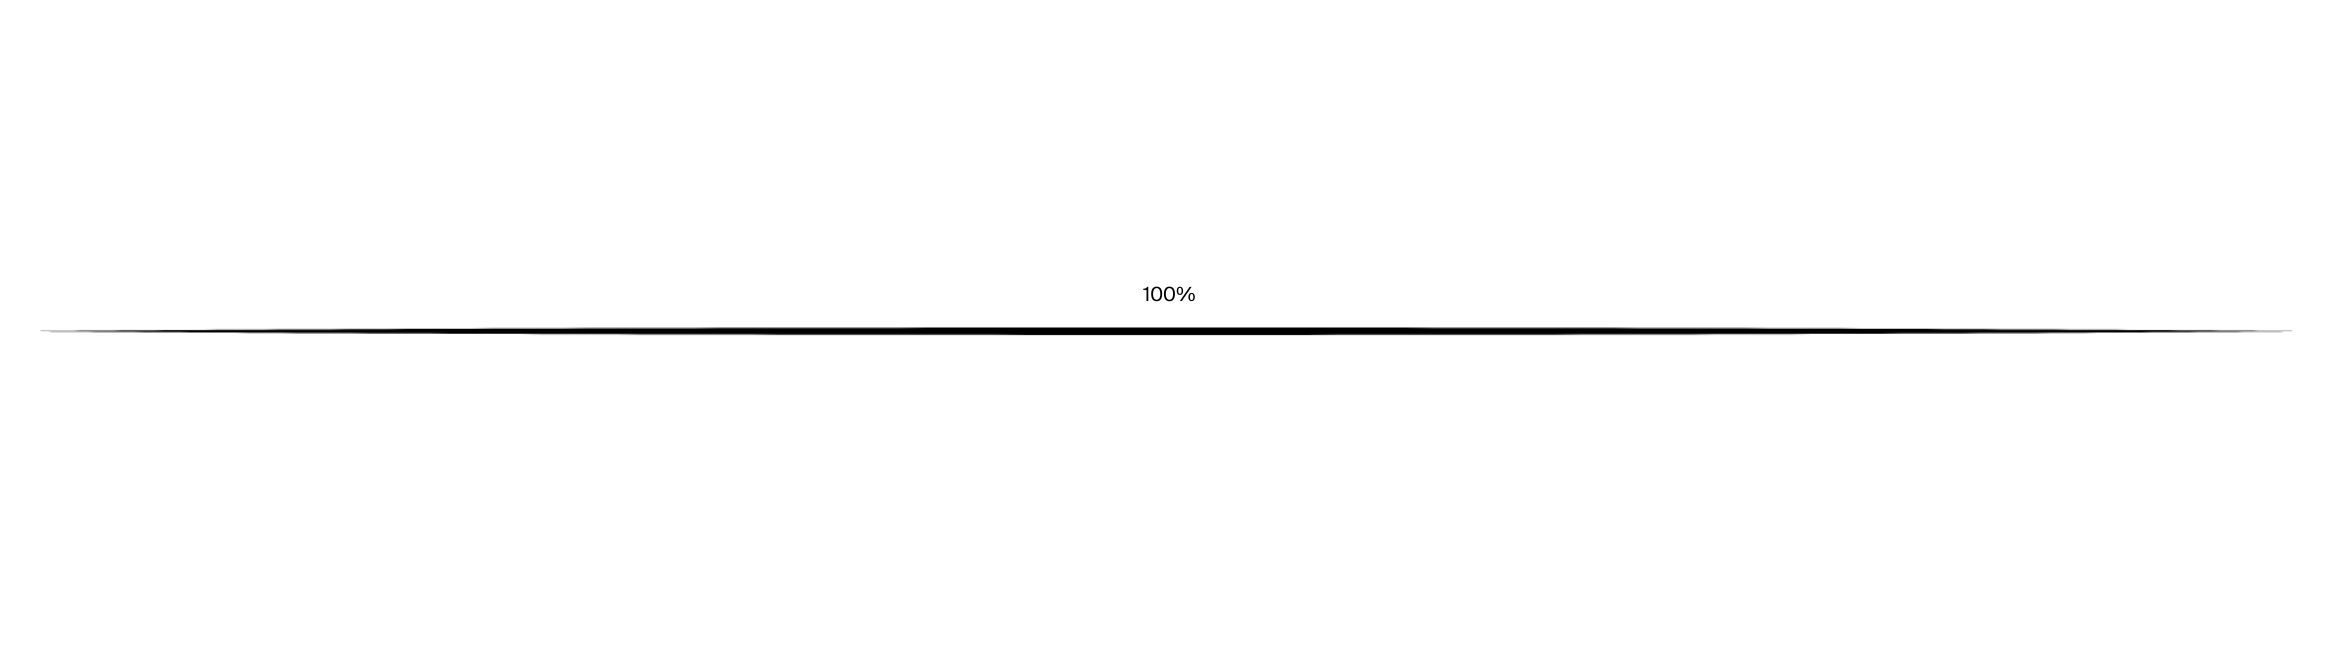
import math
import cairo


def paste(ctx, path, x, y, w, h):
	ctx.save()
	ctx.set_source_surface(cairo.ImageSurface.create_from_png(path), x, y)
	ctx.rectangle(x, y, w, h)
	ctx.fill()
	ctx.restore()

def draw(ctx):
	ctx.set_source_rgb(0, 0, 0)
	ctx.paint()
	paste(ctx, 'media/1.png', 0, 0, 2332, 662)
	ctx.select_font_face('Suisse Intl')
	ctx.set_font_size(19.5)
	ctx.set_source_rgb(0, 0, 0)
	ctx.move_to(1143, 301)
	ctx.show_text('100%')


surface = cairo.ImageSurface(cairo.FORMAT_RGB24, 2332, 662)
ctx = cairo.Context(surface)
options = cairo.FontOptions()
options.set_hint_metrics(cairo.HINT_METRICS_OFF)
options.set_hint_style(cairo.HINT_STYLE_NONE)
ctx.set_font_options(options)
ctx.set_miter_limit(4)
draw(ctx)
surface.write_to_png('image.png')
